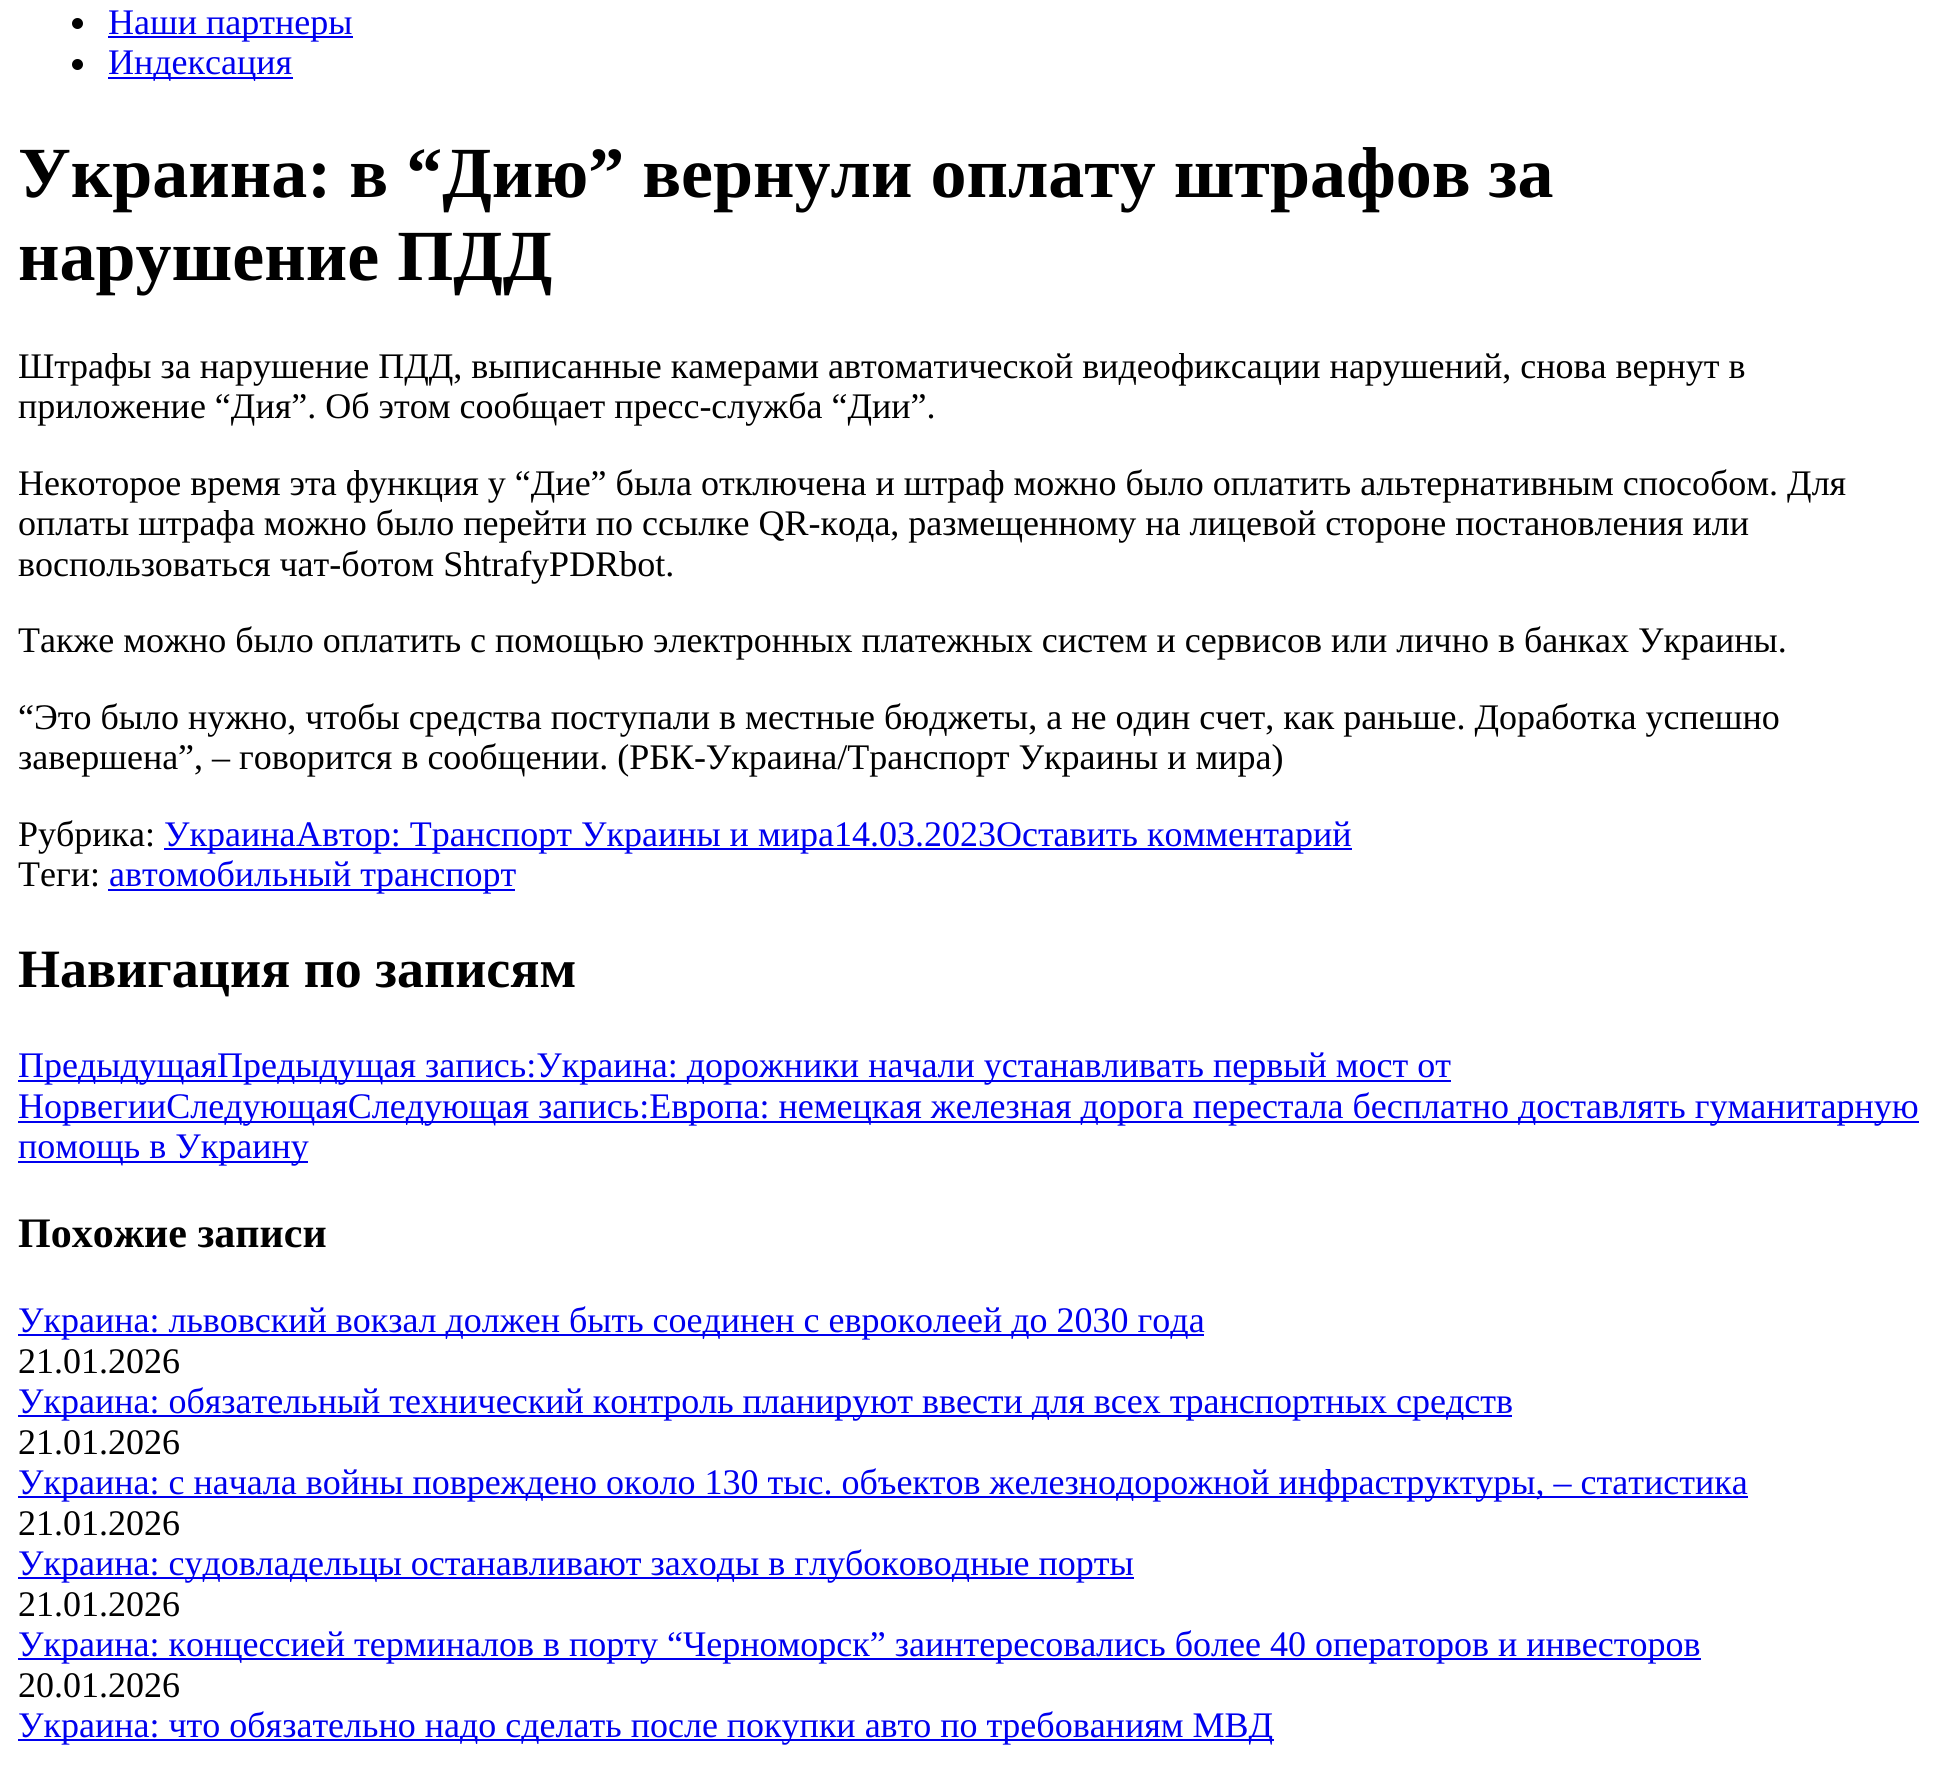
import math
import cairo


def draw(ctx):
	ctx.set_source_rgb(1, 1, 1)
	ctx.paint()
	ctx.set_source_rgb(0, 0, 0)
	ctx.arc(77.5, 23.5, 5.5, 0, 2 * math.pi)
	ctx.fill()
	ctx.set_source_rgb(0, 0, 0.933)
	ctx.rectangle(108, 36, 245, 2)
	ctx.fill()
	ctx.select_font_face('Liberation Serif')
	ctx.set_font_size(36)
	ctx.move_to(108, 34)
	ctx.show_text('Наши партнеры')
	ctx.set_source_rgb(0, 0, 0)
	ctx.new_path()
	ctx.arc(77.5, 64.5, 5.5, 0, 2 * math.pi)
	ctx.fill()
	ctx.set_source_rgb(0, 0, 0.933)
	ctx.rectangle(108, 77, 185, 2)
	ctx.fill()
	ctx.move_to(108, 74)
	ctx.show_text('Индексация')
	ctx.select_font_face('Liberation Serif', cairo.FONT_SLANT_NORMAL, cairo.FONT_WEIGHT_BOLD)
	ctx.set_font_size(72)
	ctx.set_source_rgb(0, 0, 0)
	ctx.move_to(18, 197)
	ctx.show_text('Украина: в “Дию” вернули оплату штрафов за')
	ctx.move_to(18, 280)
	ctx.show_text('нарушение ПДД')
	ctx.select_font_face('Liberation Serif')
	ctx.set_font_size(36)
	for x, y, s in [
		(18, 378, 'Штрафы за нарушение ПДД, выписанные камерами автоматической видеофиксации нарушений, снова вернут в'),
		(18, 418, 'приложение “Дия”. Об этом сообщает пресс-служба “Дии”.'),
		(18, 495, 'Некоторое время эта функция у “Дие” была отключена и штраф можно было оплатить альтернативным способом. Для'),
		(18, 535, 'оплаты штрафа можно было перейти по ссылке QR-кода, размещенному на лицевой стороне постановления или'),
		(18, 576, 'воспользоваться чат-ботом ShtrafyPDRbot.'),
		(18, 652, 'Также можно было оплатить с помощью электронных платежных систем и сервисов или лично в банках Украины.'),
		(18, 729, '“Это было нужно, чтобы средства поступали в местные бюджеты, а не один счет, как раньше. Доработка успешно'),
		(18, 769, 'завершена”, – говорится в сообщении. (РБК-Украина/Транспорт Украины и мира)'),
		(18, 846, 'Рубрика:'),
	]:
		ctx.move_to(x, y)
		ctx.show_text(s)
	ctx.set_source_rgb(0, 0, 0.933)
	ctx.rectangle(164, 848, 131, 2)
	ctx.fill()
	ctx.move_to(164, 846)
	ctx.show_text('Украина')
	ctx.rectangle(295, 848, 1057, 2)
	ctx.fill()
	ctx.move_to(296, 846)
	ctx.show_text('Автор: Транспорт Украины и мира14.03.2023Оставить комментарий')
	ctx.set_source_rgb(0, 0, 0)
	ctx.move_to(18, 886)
	ctx.show_text('Теги:')
	ctx.set_source_rgb(0, 0, 0.933)
	ctx.rectangle(108, 889, 407, 2)
	ctx.fill()
	ctx.move_to(109, 886)
	ctx.show_text('автомобильный транспорт')
	ctx.select_font_face('Liberation Serif', cairo.FONT_SLANT_NORMAL, cairo.FONT_WEIGHT_BOLD)
	ctx.set_font_size(54)
	ctx.set_source_rgb(0, 0, 0)
	ctx.move_to(18, 987)
	ctx.show_text('Навигация по записям')
	ctx.set_source_rgb(0, 0, 0.933)
	ctx.rectangle(18, 1080, 198, 2)
	ctx.fill()
	ctx.select_font_face('Liberation Serif')
	ctx.set_font_size(36)
	ctx.move_to(18, 1077)
	ctx.show_text('Предыдущая')
	ctx.rectangle(216, 1080, 1235, 2)
	ctx.fill()
	ctx.move_to(217, 1077)
	ctx.show_text('Предыдущая запись:Украина: дорожники начали устанавливать первый мост от')
	ctx.rectangle(18, 1121, 1901, 2)
	ctx.fill()
	ctx.move_to(18, 1118)
	ctx.show_text('НорвегииСледующаяСледующая запись:Европа: немецкая железная дорога перестала бесплатно доставлять гуманитарную')
	ctx.rectangle(18, 1161, 290, 2)
	ctx.fill()
	ctx.move_to(18, 1158)
	ctx.show_text('помощь в Украину')
	ctx.select_font_face('Liberation Serif', cairo.FONT_SLANT_NORMAL, cairo.FONT_WEIGHT_BOLD)
	ctx.set_font_size(42)
	ctx.set_source_rgb(0, 0, 0)
	ctx.move_to(18, 1247)
	ctx.show_text('Похожие записи')
	ctx.set_source_rgb(0, 0, 0.933)
	ctx.rectangle(18, 1334, 1186, 2)
	ctx.fill()
	ctx.select_font_face('Liberation Serif')
	ctx.set_font_size(36)
	ctx.move_to(18, 1332)
	ctx.show_text('Украина: львовский вокзал должен быть соединен с евроколеей до 2030 года')
	ctx.set_source_rgb(0, 0, 0)
	ctx.move_to(18, 1373)
	ctx.show_text('21.01.2026')
	ctx.set_source_rgb(0, 0, 0.933)
	ctx.rectangle(18, 1415, 1494, 2)
	ctx.fill()
	ctx.move_to(18, 1413)
	ctx.show_text('Украина: обязательный технический контроль планируют ввести для всех транспортных средств')
	ctx.set_source_rgb(0, 0, 0)
	ctx.move_to(18, 1454)
	ctx.show_text('21.01.2026')
	ctx.set_source_rgb(0, 0, 0.933)
	ctx.rectangle(18, 1496, 1730, 2)
	ctx.fill()
	ctx.move_to(18, 1494)
	ctx.show_text('Украина: с начала войны повреждено около 130 тыс. объектов железнодорожной инфраструктуры, – статистика')
	ctx.set_source_rgb(0, 0, 0)
	ctx.move_to(18, 1535)
	ctx.show_text('21.01.2026')
	ctx.set_source_rgb(0, 0, 0.933)
	ctx.rectangle(18, 1577, 1116, 2)
	ctx.fill()
	ctx.move_to(18, 1575)
	ctx.show_text('Украина: судовладельцы останавливают заходы в глубоководные порты')
	ctx.set_source_rgb(0, 0, 0)
	ctx.move_to(18, 1616)
	ctx.show_text('21.01.2026')
	ctx.set_source_rgb(0, 0, 0.933)
	ctx.rectangle(18, 1658, 1683, 2)
	ctx.fill()
	ctx.move_to(18, 1656)
	ctx.show_text('Украина: концессией терминалов в порту “Черноморск” заинтересовались более 40 операторов и инвесторов')
	ctx.set_source_rgb(0, 0, 0)
	ctx.move_to(18, 1697)
	ctx.show_text('20.01.2026')
	ctx.set_source_rgb(0, 0, 0.933)
	ctx.rectangle(18, 1739, 1256, 2)
	ctx.fill()
	ctx.move_to(18, 1737)
	ctx.show_text('Украина: что обязательно надо сделать после покупки авто по требованиям МВД')


surface = cairo.ImageSurface(cairo.FORMAT_RGB24, 1937, 1766)
ctx = cairo.Context(surface)
options = cairo.FontOptions()
options.set_hint_metrics(cairo.HINT_METRICS_OFF)
options.set_hint_style(cairo.HINT_STYLE_NONE)
ctx.set_font_options(options)
ctx.set_miter_limit(4)
draw(ctx)
surface.write_to_png('image.png')
